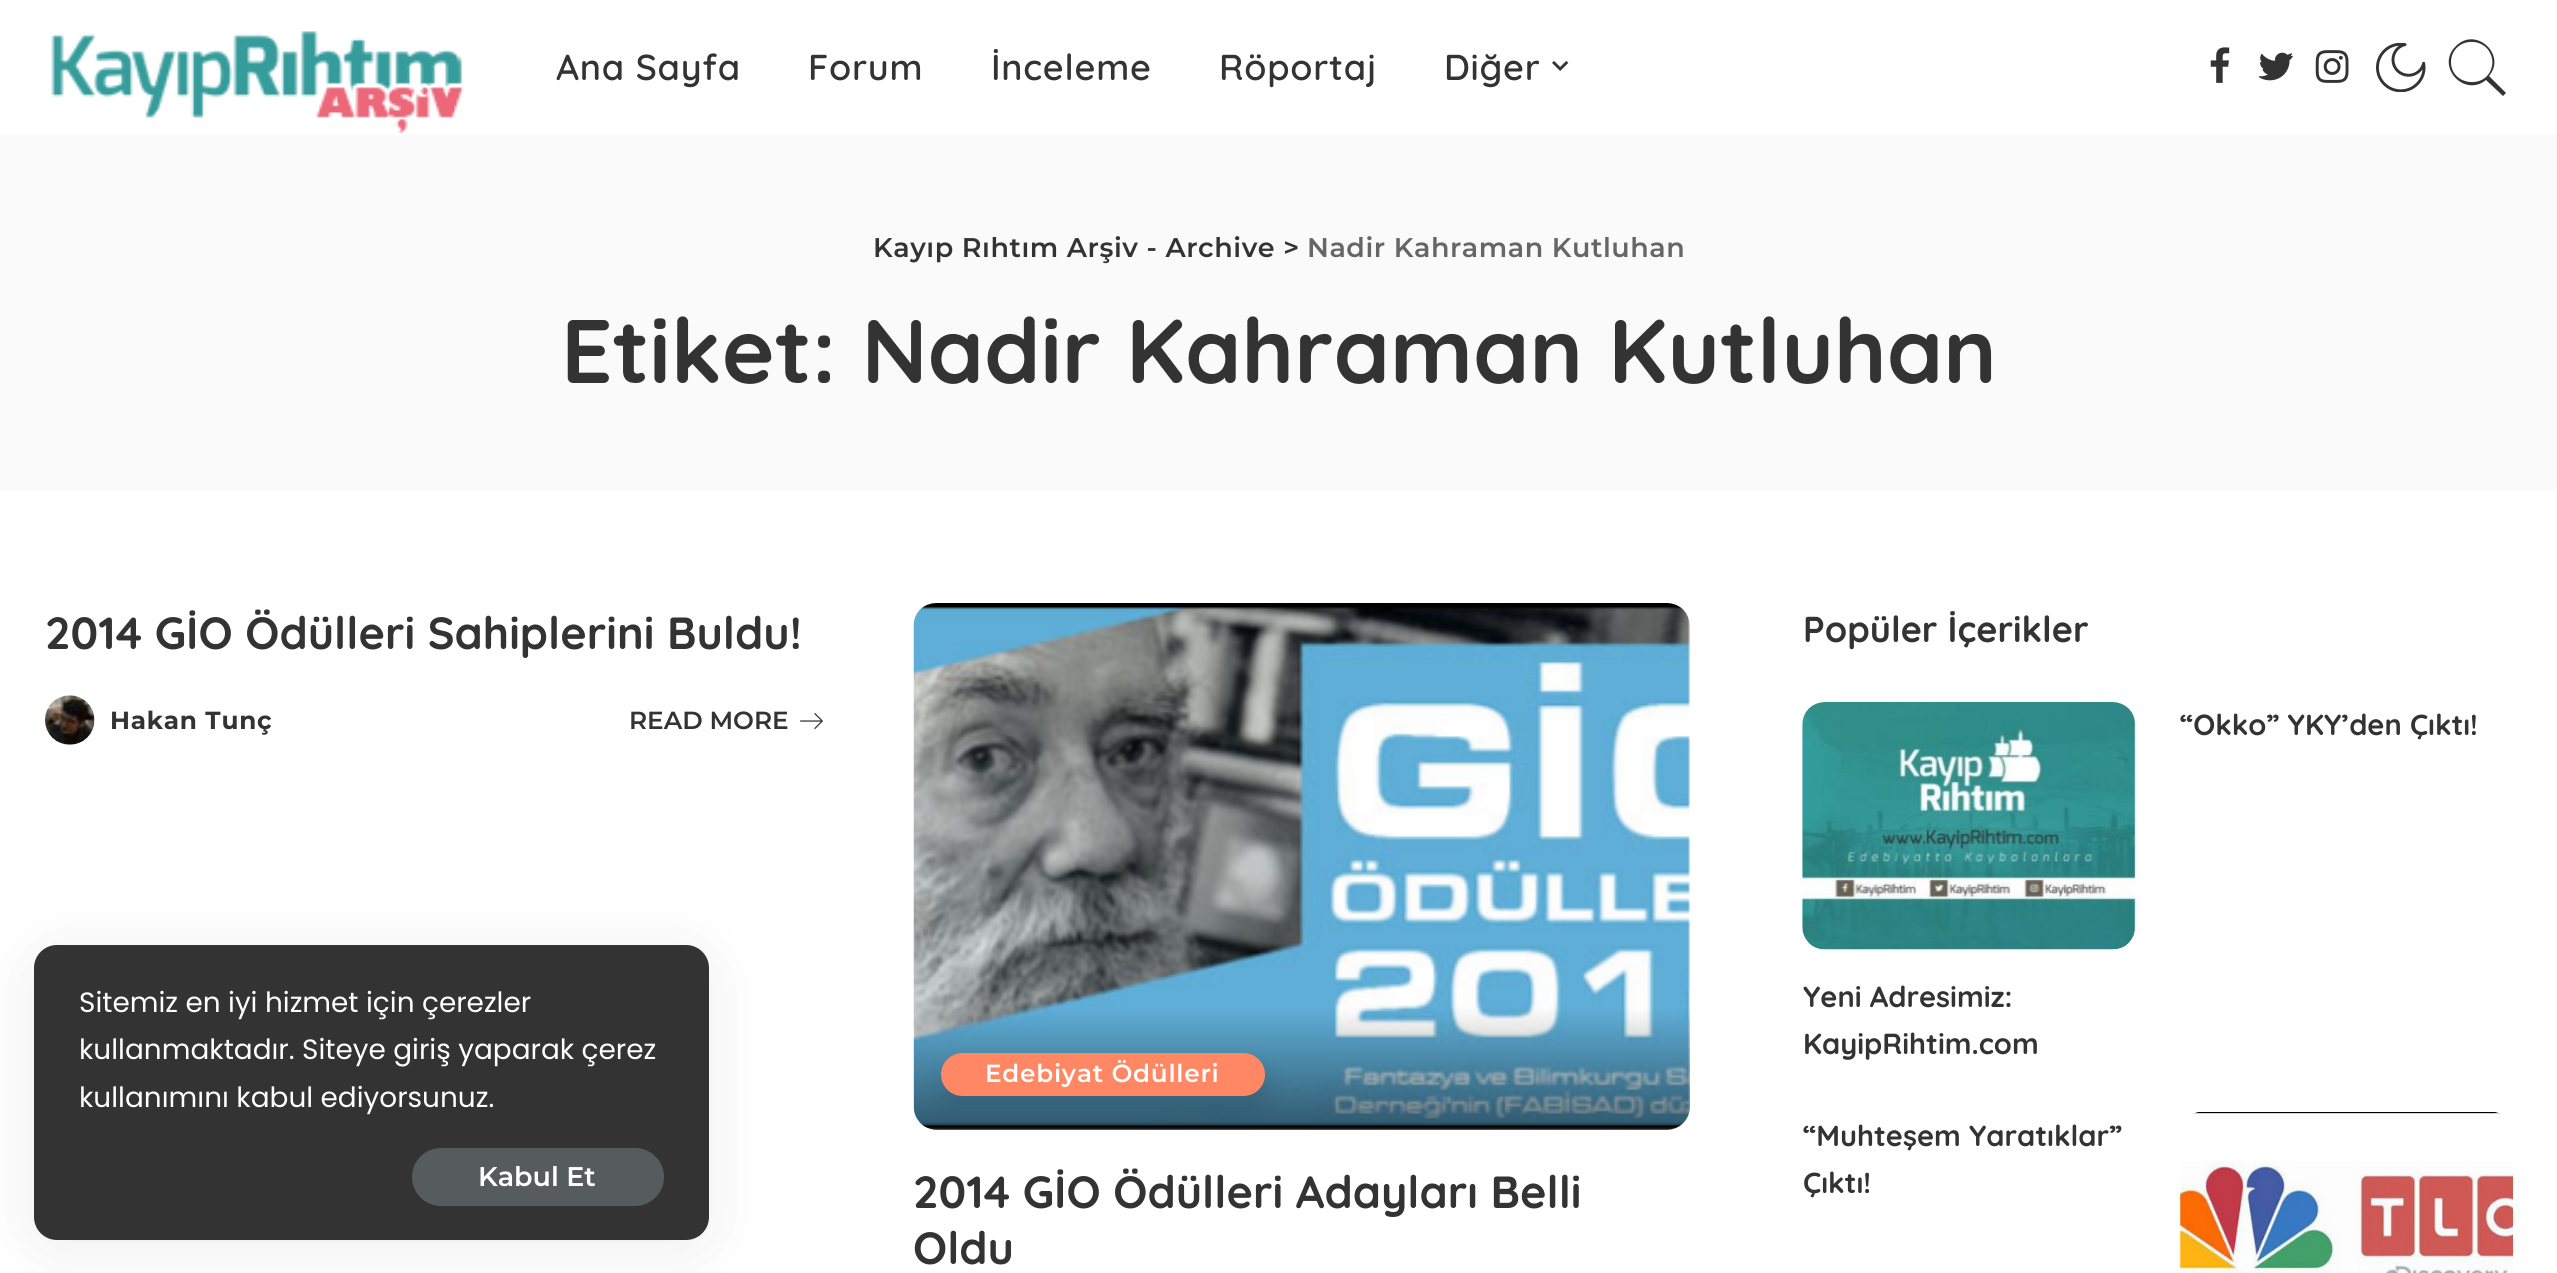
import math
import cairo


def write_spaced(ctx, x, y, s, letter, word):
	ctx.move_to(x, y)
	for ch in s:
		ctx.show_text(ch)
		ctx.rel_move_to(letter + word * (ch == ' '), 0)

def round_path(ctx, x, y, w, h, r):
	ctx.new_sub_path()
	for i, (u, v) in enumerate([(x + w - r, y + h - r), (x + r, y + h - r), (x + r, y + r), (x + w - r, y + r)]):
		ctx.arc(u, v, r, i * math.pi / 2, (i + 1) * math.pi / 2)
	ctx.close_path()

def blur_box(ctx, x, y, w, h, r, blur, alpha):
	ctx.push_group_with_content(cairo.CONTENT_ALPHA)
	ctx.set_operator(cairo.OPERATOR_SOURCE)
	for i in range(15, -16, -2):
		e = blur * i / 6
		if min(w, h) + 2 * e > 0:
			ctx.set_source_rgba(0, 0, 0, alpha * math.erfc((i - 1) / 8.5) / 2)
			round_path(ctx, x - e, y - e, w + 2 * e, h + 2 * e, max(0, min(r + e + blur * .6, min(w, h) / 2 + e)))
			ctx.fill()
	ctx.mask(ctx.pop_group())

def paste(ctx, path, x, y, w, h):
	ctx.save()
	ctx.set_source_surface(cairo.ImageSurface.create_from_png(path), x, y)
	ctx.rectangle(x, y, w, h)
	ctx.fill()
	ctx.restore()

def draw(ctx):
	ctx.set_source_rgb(1, 1, 1)
	ctx.paint()
	paste(ctx, 'media/1.png', 51, 31, 413, 103)
	ctx.select_font_face('Quicksand SemiBold')
	ctx.set_font_size(36)
	ctx.set_source_rgb(0.2, 0.2, 0.2)
	for x, y, s in [
		(556, 80, 'Ana Sayfa'),
		(808, 80, 'Forum'),
		(991, 80, 'İnceleme'),
		(1219, 80, 'Röportaj'),
		(1444, 80, 'Diğer'),
	]:
		write_spaced(ctx, x, y, s, 0.75, 0)
	paste(ctx, 'media/2.png', 1552, 61, 17, 10)
	paste(ctx, 'media/3.png', 2210, 47, 20, 36)
	paste(ctx, 'media/4.png', 2258, 52, 35, 29)
	paste(ctx, 'media/5.png', 2315, 50, 34, 33)
	paste(ctx, 'media/6.png', 2376, 43, 50, 49)
	ctx.new_path()
	ctx.move_to(2506, 93)
	ctx.line_to(2489, 76)
	ctx.curve_to(2507, 55, 2476, 26, 2456, 46)
	ctx.curve_to(2435, 66, 2464, 98, 2486, 80)
	ctx.line_to(2503, 96)
	ctx.close_path()
	ctx.move_to(2451, 62)
	ctx.curve_to(2451, 50, 2461, 41, 2473, 42)
	ctx.curve_to(2479, 42, 2486, 46, 2489, 51)
	ctx.curve_to(2492, 56, 2493, 61, 2492, 66)
	ctx.curve_to(2487, 90, 2451, 86, 2451, 62)
	ctx.close_path()
	ctx.fill()
	ctx.set_source_rgb(0.98, 0.98, 0.98)
	ctx.rectangle(0, 135, 2557, 356)
	ctx.fill()
	ctx.select_font_face('Montserrat SemiBold')
	ctx.set_font_size(27)
	ctx.set_source_rgb(0.2, 0.2, 0.2)
	write_spaced(ctx, 873, 257, 'Kayıp Rıhtım Arşiv - Archive >', 0.55, 0)
	ctx.set_source_rgb(0.4, 0.4, 0.4)
	write_spaced(ctx, 1307, 257, 'Nadir Kahraman Kutluhan', 0.55, 0)
	ctx.select_font_face('Quicksand', cairo.FONT_SLANT_NORMAL, cairo.FONT_WEIGHT_BOLD)
	ctx.set_font_size(90)
	ctx.set_source_rgb(0.2, 0.2, 0.2)
	ctx.move_to(561, 383)
	ctx.show_text('Etiket: Nadir Kahraman Kutluhan')
	ctx.set_font_size(45)
	ctx.move_to(45, 649)
	ctx.show_text('2014 GİO Ödülleri Sahiplerini Buldu!')
	paste(ctx, 'media/7.png', 45, 695, 50, 50)
	ctx.select_font_face('Montserrat', cairo.FONT_SLANT_NORMAL, cairo.FONT_WEIGHT_BOLD)
	ctx.set_font_size(24.75)
	write_spaced(ctx, 110, 729, 'Hakan Tunç', 0.75, 0)
	ctx.select_font_face('Montserrat SemiBold')
	ctx.move_to(629, 729)
	ctx.show_text('READ MORE')
	paste(ctx, 'media/8.png', 800, 713, 23, 17)
	paste(ctx, 'media/9.png', 913, 603, 777, 527)
	gradient = cairo.LinearGradient(1302, 1008, 1302, 1130)
	gradient.add_color_stop_rgba(0, 0, 0, 0, 0)
	gradient.add_color_stop_rgba(1, 0, 0, 0, 0.5)
	ctx.set_source(gradient)
	ctx.new_path()
	ctx.move_to(914, 1008)
	ctx.line_to(1690, 1008)
	ctx.line_to(1690, 1107)
	ctx.curve_to(1690, 1119.5, 1679.5, 1130, 1667, 1130)
	ctx.line_to(937, 1130)
	ctx.curve_to(924.5, 1130, 914, 1119.5, 914, 1107)
	ctx.close_path()
	ctx.fill()
	ctx.set_source_rgb(0, 0, 0)
	blur_box(ctx, 943, 1064, 324, 43, 21.5, 11, 0.1)
	ctx.set_source_rgb(1, 0.529, 0.388)
	round_path(ctx, 941, 1053, 324, 43, 21.5)
	ctx.fill()
	ctx.set_source_rgb(1, 1, 1)
	write_spaced(ctx, 985, 1082, 'Edebiyat Ödülleri', 0.75, 0)
	ctx.select_font_face('Quicksand', cairo.FONT_SLANT_NORMAL, cairo.FONT_WEIGHT_BOLD)
	ctx.set_font_size(45)
	ctx.set_source_rgb(0.2, 0.2, 0.2)
	ctx.move_to(913, 1208)
	ctx.show_text('2014 GİO Ödülleri Adayları Belli')
	ctx.move_to(913, 1264)
	ctx.show_text('Oldu')
	ctx.set_font_size(36)
	ctx.move_to(1803, 642)
	ctx.show_text('Popüler İçerikler')
	ctx.set_font_size(29)
	ctx.move_to(2180, 735)
	ctx.show_text('“Okko” YKY’den Çıktı!')
	paste(ctx, 'media/10.png', 1802, 702, 334, 248)
	for x, y, s in [
		(1803, 1007, 'Yeni Adresimiz:'),
		(1803, 1054, 'KayipRihtim.com'),
		(1803, 1146, '“Muhteşem Yaratıklar”'),
		(1803, 1193, 'Çıktı!'),
	]:
		ctx.move_to(x, y)
		ctx.show_text(s)
	paste(ctx, 'media/11.png', 2180, 1112, 334, 161)
	ctx.set_source_rgb(0, 0, 0)
	blur_box(ctx, 34, 954, 675, 295, 23, 34, 0.07)
	ctx.set_source_rgb(0.2, 0.2, 0.2)
	round_path(ctx, 34, 945, 675, 295, 23)
	ctx.fill()
	ctx.select_font_face('Poppins')
	ctx.set_font_size(27.9)
	ctx.set_source_rgb(1, 1, 1)
	for x, y, s in [
		(79, 1012, 'Sitemiz en iyi hizmet için çerezler'),
		(79, 1059, 'kullanmaktadır. Siteye giriş yaparak çerez'),
		(79, 1107, 'kullanımını kabul ediyorsunuz.'),
	]:
		ctx.move_to(x, y)
		ctx.show_text(s)
	ctx.set_source_rgb(0.337, 0.361, 0.361)
	round_path(ctx, 412, 1148, 252, 58, 29)
	ctx.fill()
	ctx.select_font_face('Montserrat SemiBold')
	ctx.set_font_size(27)
	ctx.set_source_rgb(1, 1, 1)
	ctx.move_to(478, 1186)
	ctx.show_text('Kabul Et')


surface = cairo.ImageSurface(cairo.FORMAT_RGB24, 2557, 1273)
ctx = cairo.Context(surface)
options = cairo.FontOptions()
options.set_hint_metrics(cairo.HINT_METRICS_OFF)
options.set_hint_style(cairo.HINT_STYLE_NONE)
ctx.set_font_options(options)
ctx.set_miter_limit(4)
draw(ctx)
surface.write_to_png('image.png')
